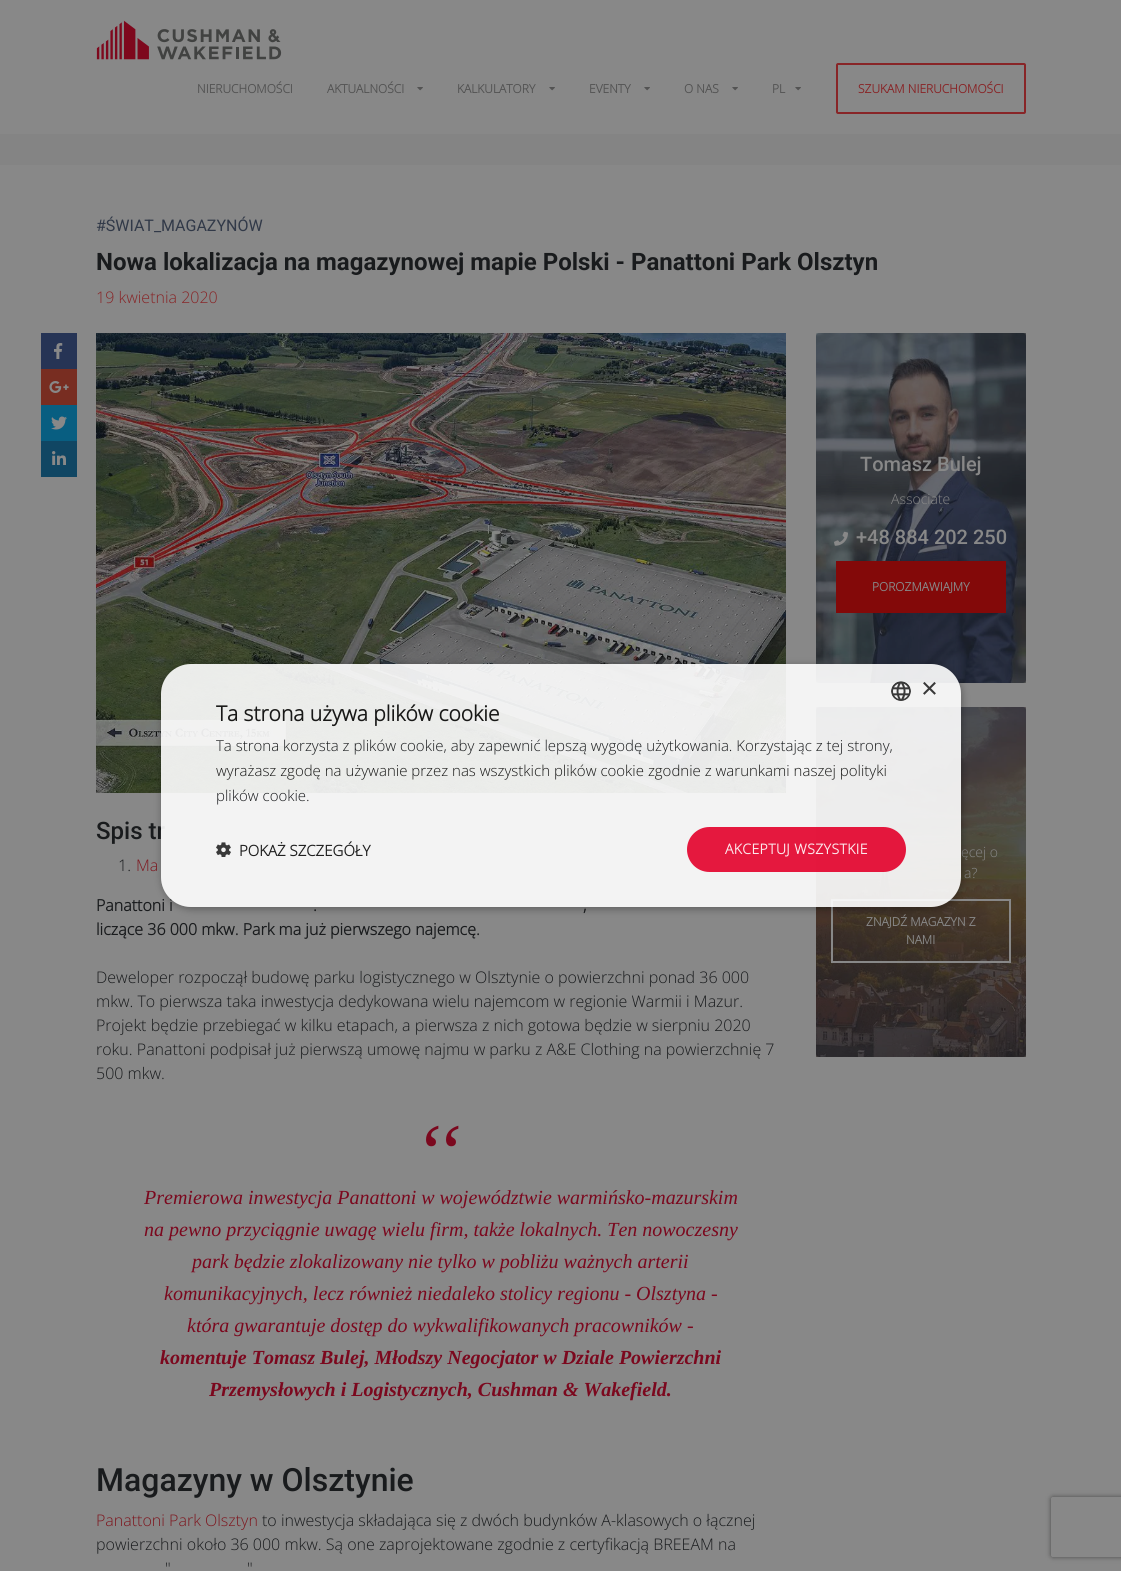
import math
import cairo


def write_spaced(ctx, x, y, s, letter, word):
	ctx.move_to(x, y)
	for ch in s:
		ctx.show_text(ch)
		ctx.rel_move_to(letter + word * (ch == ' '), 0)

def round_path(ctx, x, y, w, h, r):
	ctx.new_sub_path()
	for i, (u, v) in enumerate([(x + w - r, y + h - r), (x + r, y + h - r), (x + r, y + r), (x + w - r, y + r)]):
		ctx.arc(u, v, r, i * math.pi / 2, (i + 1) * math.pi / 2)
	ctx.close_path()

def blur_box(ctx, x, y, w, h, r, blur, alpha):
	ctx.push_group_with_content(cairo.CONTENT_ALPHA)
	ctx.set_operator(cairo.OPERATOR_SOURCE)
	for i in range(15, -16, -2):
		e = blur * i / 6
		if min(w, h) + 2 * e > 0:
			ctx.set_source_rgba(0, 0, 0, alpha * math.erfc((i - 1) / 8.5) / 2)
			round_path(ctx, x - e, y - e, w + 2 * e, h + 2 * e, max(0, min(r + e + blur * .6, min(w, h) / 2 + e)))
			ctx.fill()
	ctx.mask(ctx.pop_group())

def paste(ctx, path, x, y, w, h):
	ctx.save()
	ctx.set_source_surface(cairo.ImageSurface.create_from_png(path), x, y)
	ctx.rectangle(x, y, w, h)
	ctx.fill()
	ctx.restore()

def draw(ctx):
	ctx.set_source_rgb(0.533, 0.533, 0.533)
	ctx.paint()
	paste(ctx, 'media/1.png', 96, 20, 186, 40)
	ctx.select_font_face('Open Sans', cairo.FONT_SLANT_NORMAL, cairo.FONT_WEIGHT_BOLD)
	ctx.set_font_size(12)
	ctx.set_source_rgb(0.325, 0.325, 0.325)
	ctx.move_to(197, 93)
	ctx.show_text('NIERUCHOMOŚCI')
	ctx.move_to(327, 93)
	ctx.show_text('AKTUALNOŚCI')
	paste(ctx, 'media/2.png', 417, 87, 6, 4)
	ctx.move_to(457, 93)
	ctx.show_text('KALKULATORY')
	paste(ctx, 'media/2.png', 549, 87, 6, 4)
	ctx.move_to(589, 93)
	ctx.show_text('EVENTY')
	paste(ctx, 'media/2.png', 644, 87, 6, 4)
	ctx.move_to(684, 93)
	ctx.show_text('O NAS')
	paste(ctx, 'media/2.png', 732, 87, 6, 4)
	ctx.move_to(772, 93)
	ctx.show_text('PL')
	paste(ctx, 'media/2.png', 795, 87, 6, 4)
	round_path(ctx, 837, 64, 188, 49, 1)
	ctx.set_source_rgb(0.533, 0.145, 0.153)
	ctx.stroke()
	ctx.move_to(858, 93)
	ctx.show_text('SZUKAM NIERUCHOMOŚCI')
	ctx.set_source_rgb(0.518, 0.518, 0.518)
	ctx.rectangle(0, 134, 1121, 31)
	ctx.fill()
	ctx.select_font_face('Roboto')
	ctx.set_font_size(16)
	ctx.set_source_rgb(0.192, 0.224, 0.282)
	ctx.move_to(96, 231)
	ctx.show_text('#ŚWIAT_MAGAZYNÓW')
	ctx.select_font_face('Roboto', cairo.FONT_SLANT_NORMAL, cairo.FONT_WEIGHT_BOLD)
	ctx.set_font_size(24)
	ctx.set_source_rgb(0.098, 0.106, 0.114)
	ctx.move_to(96, 270)
	ctx.show_text('Nowa lokalizacja na magazynowej mapie Polski - Panattoni Park Olsztyn')
	ctx.select_font_face('Open Sans Light')
	ctx.set_font_size(16)
	ctx.set_source_rgb(0.533, 0.145, 0.153)
	ctx.move_to(96, 303)
	ctx.show_text('19 kwietnia 2020')
	ctx.set_source_rgb(0.149, 0.204, 0.333)
	ctx.rectangle(41, 333, 36, 36)
	ctx.fill()
	paste(ctx, 'media/3.png', 54, 343, 9, 16)
	ctx.set_source_rgb(0.471, 0.176, 0.129)
	ctx.rectangle(41, 369, 36, 36)
	ctx.fill()
	paste(ctx, 'media/4.png', 49, 381, 20, 12)
	ctx.set_source_rgb(0.035, 0.369, 0.506)
	ctx.rectangle(41, 405, 36, 36)
	ctx.fill()
	paste(ctx, 'media/5.png', 51, 416, 16, 14)
	ctx.set_source_rgb(0.063, 0.275, 0.388)
	ctx.rectangle(41, 441, 36, 36)
	ctx.fill()
	paste(ctx, 'media/6.png', 52, 451, 14, 14)
	ctx.set_source_rgb(0.192, 0.224, 0.282)
	round_path(ctx, 816, 333, 210, 350, 3)
	ctx.fill()
	paste(ctx, 'media/7.png', 816, 333, 210, 350)
	ctx.select_font_face('Roboto Medium')
	ctx.set_font_size(20)
	ctx.set_source_rgb(0.533, 0.533, 0.533)
	ctx.move_to(860, 471)
	ctx.show_text('Tomasz Bulej')
	ctx.select_font_face('Open Sans Light')
	ctx.set_font_size(14)
	ctx.move_to(891, 504)
	ctx.show_text('Associate')
	paste(ctx, 'media/8.png', 834, 531, 14, 15)
	ctx.select_font_face('Roboto Medium')
	ctx.set_font_size(20)
	ctx.move_to(856, 544)
	ctx.show_text('+48 884 202 250')
	ctx.set_source_rgb(0.514, 0.039, 0.039)
	ctx.rectangle(836, 561, 170, 52)
	ctx.fill()
	ctx.select_font_face('Open Sans', cairo.FONT_SLANT_NORMAL, cairo.FONT_WEIGHT_BOLD)
	ctx.set_font_size(12)
	ctx.set_source_rgb(0.533, 0.533, 0.533)
	ctx.move_to(872, 591)
	ctx.show_text('POROZMAWIAJMY')
	ctx.set_source_rgb(0.192, 0.224, 0.282)
	round_path(ctx, 816, 707, 210, 350, 3)
	ctx.fill()
	paste(ctx, 'media/9.png', 816, 707, 210, 350)
	ctx.select_font_face('Open Sans Light')
	ctx.set_font_size(14)
	ctx.set_source_rgb(0.533, 0.533, 0.533)
	ctx.move_to(961, 857)
	ctx.show_text('ęcej o')
	ctx.move_to(964, 878)
	ctx.show_text('a?')
	ctx.rectangle(832, 900, 178, 62)
	ctx.stroke()
	ctx.select_font_face('Open Sans', cairo.FONT_SLANT_NORMAL, cairo.FONT_WEIGHT_BOLD)
	ctx.set_font_size(12)
	ctx.move_to(866, 926)
	ctx.show_text('ZNAJDŹ MAGAZYN Z')
	ctx.move_to(906, 944)
	ctx.show_text('NAMI')
	paste(ctx, 'media/10.png', 96, 333, 690, 460)
	ctx.select_font_face('Roboto Medium')
	ctx.set_font_size(24)
	ctx.set_source_rgb(0.098, 0.106, 0.114)
	ctx.move_to(96, 839)
	ctx.show_text('Spis tr')
	ctx.select_font_face('Open Sans Light')
	ctx.set_font_size(16)
	ctx.move_to(118, 871)
	ctx.show_text('1.')
	ctx.set_source_rgb(0.494, 0.09, 0.122)
	ctx.move_to(136, 871)
	ctx.show_text('Ma')
	ctx.select_font_face('Open Sans', cairo.FONT_SLANT_NORMAL, cairo.FONT_WEIGHT_BOLD)
	ctx.set_source_rgb(0.098, 0.106, 0.114)
	for x, y, s in [
		(96, 911, 'Panattoni i'),
		(313, 911, '.'),
		(583, 911, ','),
		(96, 935, 'liczące 36 000 mkw. Park ma już pierwszego najemcę.'),
	]:
		ctx.move_to(x, y)
		ctx.show_text(s)
	ctx.select_font_face('Open Sans Light')
	for x, y, s in [
		(96, 983, 'Deweloper rozpoczął budowę parku logistycznego w Olsztynie o powierzchni ponad 36 000'),
		(96, 1007, 'mkw. To pierwsza taka inwestycja dedykowana wielu najemcom w regionie Warmii i Mazur.'),
		(96, 1031, 'Projekt będzie przebiegać w kilku etapach, a pierwsza z nich gotowa będzie w sierpniu 2020'),
		(96, 1055, 'roku. Panattoni podpisał już pierwszą umowę najmu w parku z A&E Clothing na powierzchnię 7'),
		(96, 1079, '500 mkw.'),
	]:
		ctx.move_to(x, y)
		ctx.show_text(s)
	ctx.select_font_face('Liberation Serif', cairo.FONT_SLANT_ITALIC)
	ctx.set_font_size(80)
	ctx.set_source_rgb(0.482, 0.035, 0.118)
	ctx.save()
	ctx.translate(461, 1138)
	ctx.rotate(180 * math.pi / 180)
	ctx.move_to(0, 0)
	ctx.show_text(',,')
	ctx.restore()
	ctx.set_font_size(20)
	for x, y, s in [
		(144, 1204, 'Premierowa inwestycja Panattoni w województwie warmińsko-mazurskim'),
		(144, 1236, 'na pewno przyciągnie uwagę wielu firm, także lokalnych. Ten nowoczesny'),
		(192, 1268, 'park będzie zlokalizowany nie tylko w pobliżu ważnych arterii'),
		(164, 1300, 'komunikacyjnych, lecz również niedaleko stolicy regionu - Olsztyna -'),
		(187, 1332, 'która gwarantuje dostęp do wykwalifikowanych pracowników -'),
	]:
		ctx.move_to(x, y)
		ctx.show_text(s)
	ctx.select_font_face('Liberation Serif', cairo.FONT_SLANT_ITALIC, cairo.FONT_WEIGHT_BOLD)
	ctx.move_to(160, 1364)
	ctx.show_text('komentuje Tomasz Bulej, Młodszy Negocjator w Dziale Powierzchni')
	ctx.move_to(209, 1396)
	ctx.show_text('Przemysłowych i Logistycznych, Cushman & Wakefield.')
	ctx.select_font_face('Roboto Medium')
	ctx.set_font_size(32)
	ctx.set_source_rgb(0.098, 0.106, 0.114)
	ctx.move_to(96, 1491)
	ctx.show_text('Magazyny w Olsztynie')
	ctx.select_font_face('Open Sans Light')
	ctx.set_font_size(16)
	ctx.set_source_rgb(0.494, 0.09, 0.122)
	ctx.move_to(96, 1526)
	ctx.show_text('Panattoni Park Olsztyn')
	ctx.set_source_rgb(0.098, 0.106, 0.114)
	for x, y, s in [
		(262, 1526, 'to inwestycja składająca się z dwóch budynków A-klasowych o łącznej'),
		(96, 1550, 'powierzchni około 36 000 mkw. Są one zaprojektowane zgodnie z certyfikacją BREEAM na'),
		(165, 1574, '"'),
		(247, 1574, '"'),
	]:
		ctx.move_to(x, y)
		ctx.show_text(s)
	ctx.save()
	ctx.set_fill_rule(cairo.FILL_RULE_EVEN_ODD)
	ctx.new_path()
	ctx.move_to(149, 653)
	ctx.line_to(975, 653)
	ctx.line_to(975, 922)
	ctx.line_to(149, 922)
	ctx.close_path()
	ctx.move_to(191, 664)
	ctx.line_to(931, 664)
	ctx.curve_to(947.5, 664, 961, 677.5, 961, 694)
	ctx.line_to(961, 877)
	ctx.curve_to(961, 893.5, 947.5, 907, 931, 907)
	ctx.line_to(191, 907)
	ctx.curve_to(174.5, 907, 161, 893.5, 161, 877)
	ctx.line_to(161, 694)
	ctx.curve_to(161, 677.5, 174.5, 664, 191, 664)
	ctx.close_path()
	ctx.clip()
	ctx.set_source_rgb(0, 0, 0)
	blur_box(ctx, 162, 666, 800, 243, 30, 4, 0.32)
	ctx.restore()
	ctx.set_source_rgba(1, 1, 1, 0.9)
	round_path(ctx, 161, 664, 800, 243, 30)
	ctx.fill()
	paste(ctx, 'media/11.png', 891, 681, 20, 20)
	ctx.select_font_face('Liberation Sans')
	ctx.set_font_size(29)
	ctx.set_source_rgb(0.224, 0.224, 0.224)
	ctx.move_to(921, 698)
	ctx.show_text('×')
	ctx.select_font_face('Open Sans', cairo.FONT_SLANT_NORMAL, cairo.FONT_WEIGHT_BOLD)
	ctx.set_font_size(21)
	ctx.set_source_rgb(0.094, 0.094, 0.09)
	ctx.move_to(216, 721)
	ctx.show_text('Ta strona używa plików cookie')
	ctx.select_font_face('Open Sans Light')
	ctx.set_font_size(15)
	ctx.set_source_rgb(0.098, 0.106, 0.114)
	ctx.move_to(216, 751)
	ctx.show_text('Ta strona korzysta z plików cookie, aby zapewnić lepszą wygodę użytkowania. Korzystając z tej strony,')
	ctx.set_source_rgb(0.094, 0.094, 0.09)
	ctx.move_to(216, 776)
	ctx.show_text('wyrażasz zgodę na używanie przez nas wszystkich plików cookie zgodnie z warunkami naszej polityki')
	ctx.set_source_rgb(0.098, 0.106, 0.114)
	ctx.move_to(216, 801)
	ctx.show_text('plików cookie.')
	paste(ctx, 'media/12.png', 216, 842, 15, 15)
	ctx.select_font_face('Open Sans', cairo.FONT_SLANT_NORMAL, cairo.FONT_WEIGHT_BOLD)
	ctx.set_source_rgb(0.125, 0.125, 0.125)
	ctx.move_to(239, 856)
	ctx.show_text('POKAŻ SZCZEGÓŁY')
	ctx.set_source_rgba(0.894, 0, 0.169, 0.9)
	round_path(ctx, 687, 827, 219, 45, 22.5)
	ctx.fill()
	ctx.set_font_size(14)
	ctx.set_source_rgb(0.988, 0.91, 0.925)
	write_spaced(ctx, 725, 854, 'AKCEPTUJ WSZYSTKIE', 0.4, 0)
	ctx.save()
	ctx.set_fill_rule(cairo.FILL_RULE_EVEN_ODD)
	ctx.new_path()
	ctx.move_to(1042, 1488)
	ctx.line_to(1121, 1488)
	ctx.line_to(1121, 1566)
	ctx.line_to(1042, 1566)
	ctx.close_path()
	ctx.move_to(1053, 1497)
	ctx.line_to(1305, 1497)
	ctx.curve_to(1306, 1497, 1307, 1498, 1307, 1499)
	ctx.line_to(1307, 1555)
	ctx.curve_to(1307, 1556, 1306, 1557, 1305, 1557)
	ctx.line_to(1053, 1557)
	ctx.curve_to(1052, 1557, 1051, 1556, 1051, 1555)
	ctx.line_to(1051, 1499)
	ctx.curve_to(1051, 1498, 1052, 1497, 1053, 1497)
	ctx.close_path()
	ctx.clip()
	ctx.set_source_rgb(0.286, 0.286, 0.286)
	blur_box(ctx, 1051, 1497, 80, 60, 2, 2.5, 1)
	ctx.restore()


surface = cairo.ImageSurface(cairo.FORMAT_RGB24, 1121, 1571)
ctx = cairo.Context(surface)
options = cairo.FontOptions()
options.set_hint_metrics(cairo.HINT_METRICS_OFF)
options.set_hint_style(cairo.HINT_STYLE_NONE)
ctx.set_font_options(options)
ctx.set_miter_limit(4)
draw(ctx)
surface.write_to_png('image.png')
